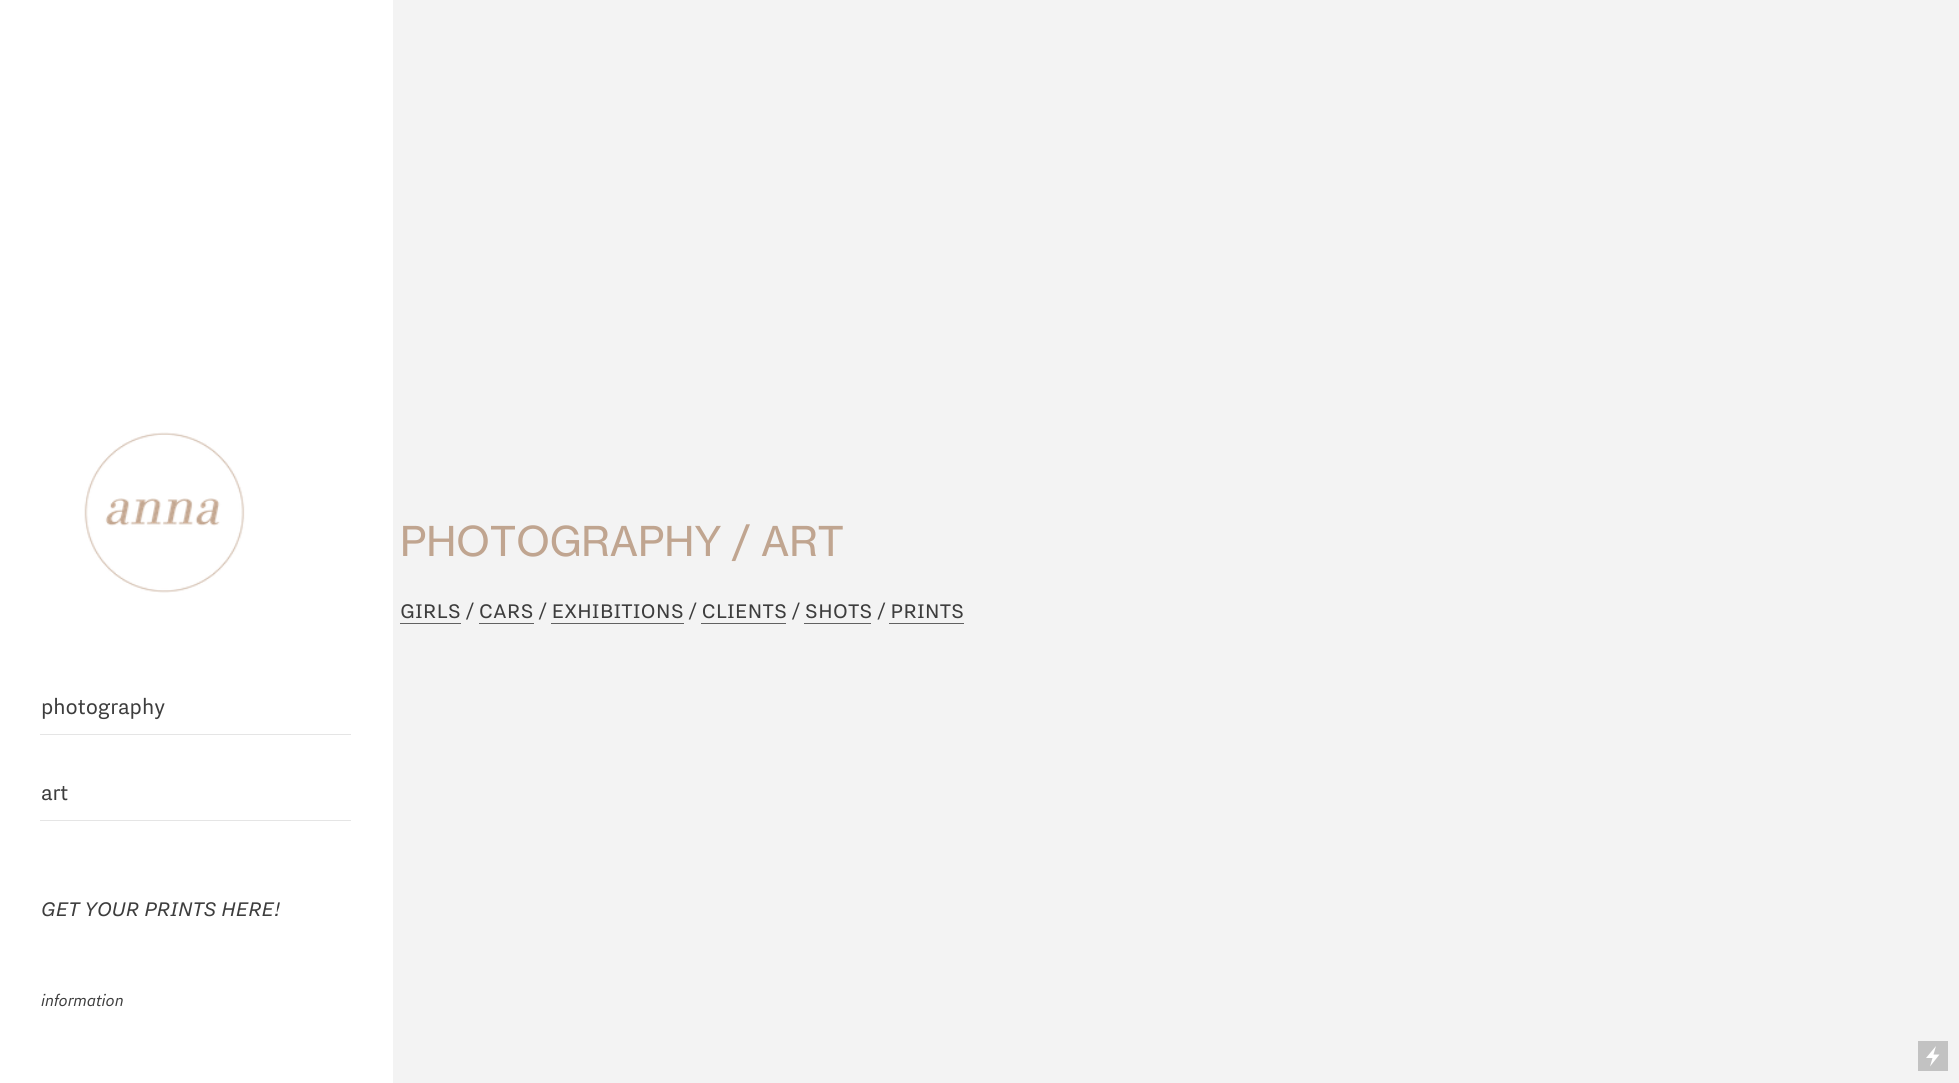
import math
import cairo


def paste(ctx, path, x, y, w, h):
	ctx.save()
	ctx.set_source_surface(cairo.ImageSurface.create_from_png(path), x, y)
	ctx.rectangle(x, y, w, h)
	ctx.fill()
	ctx.restore()

def draw(ctx):
	ctx.set_source_rgb(0.953, 0.953, 0.953)
	ctx.paint()
	ctx.select_font_face('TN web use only')
	ctx.set_font_size(40.5)
	ctx.set_source_rgb(0.753, 0.647, 0.565)
	ctx.move_to(400, 556)
	ctx.show_text('PHOTOGRAPHY / ART')
	ctx.select_font_face('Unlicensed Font')
	ctx.set_font_size(25)
	ctx.set_source_rgb(0.239, 0.239, 0.239)
	ctx.move_to(400, 618)
	ctx.show_text('GIRLS / CARS / EXHIBITIONS / CLIENTS / SHOTS / PRINTS')
	ctx.set_source_rgb(0.38, 0.38, 0.38)
	ctx.rectangle(400, 623, 61, 1)
	ctx.rectangle(479, 623, 55, 1)
	ctx.rectangle(551, 623, 133, 1)
	ctx.rectangle(701, 623, 85, 1)
	ctx.rectangle(804, 623, 67, 1)
	ctx.rectangle(889, 623, 75, 1)
	ctx.fill()
	ctx.set_source_rgb(1, 1, 1)
	ctx.rectangle(0, 0, 393, 1083)
	ctx.fill()
	paste(ctx, 'media/1.png', 84, 432, 161, 161)
	ctx.set_source_rgb(0.239, 0.239, 0.239)
	ctx.move_to(41, 714)
	ctx.show_text('photography')
	ctx.set_source_rgb(0.898, 0.898, 0.898)
	ctx.rectangle(40, 734, 311, 1)
	ctx.fill()
	ctx.set_source_rgb(0.239, 0.239, 0.239)
	ctx.move_to(41, 800)
	ctx.show_text('art')
	ctx.set_source_rgb(0.898, 0.898, 0.898)
	ctx.rectangle(40, 820, 311, 1)
	ctx.fill()
	ctx.select_font_face('Unlicensed Font', cairo.FONT_SLANT_ITALIC)
	ctx.set_source_rgb(0.239, 0.239, 0.239)
	ctx.move_to(41, 916)
	ctx.show_text('GET YOUR PRINTS HERE!')
	ctx.set_font_size(18.75)
	ctx.move_to(41, 1006)
	ctx.show_text('information')
	ctx.set_source_rgb(0.761, 0.761, 0.761)
	ctx.rectangle(1918, 1041, 30, 30)
	ctx.fill()
	ctx.set_source_rgb(1, 1, 1)
	ctx.new_path()
	ctx.move_to(1939.5, 1054.5)
	ctx.line_to(1933.5, 1054.5)
	ctx.line_to(1936, 1046)
	ctx.line_to(1926, 1058)
	ctx.line_to(1932.5, 1058)
	ctx.line_to(1930, 1066.5)
	ctx.close_path()
	ctx.fill()


surface = cairo.ImageSurface(cairo.FORMAT_RGB24, 1959, 1083)
ctx = cairo.Context(surface)
options = cairo.FontOptions()
options.set_hint_metrics(cairo.HINT_METRICS_OFF)
options.set_hint_style(cairo.HINT_STYLE_NONE)
ctx.set_font_options(options)
ctx.set_miter_limit(4)
draw(ctx)
surface.write_to_png('image.png')
